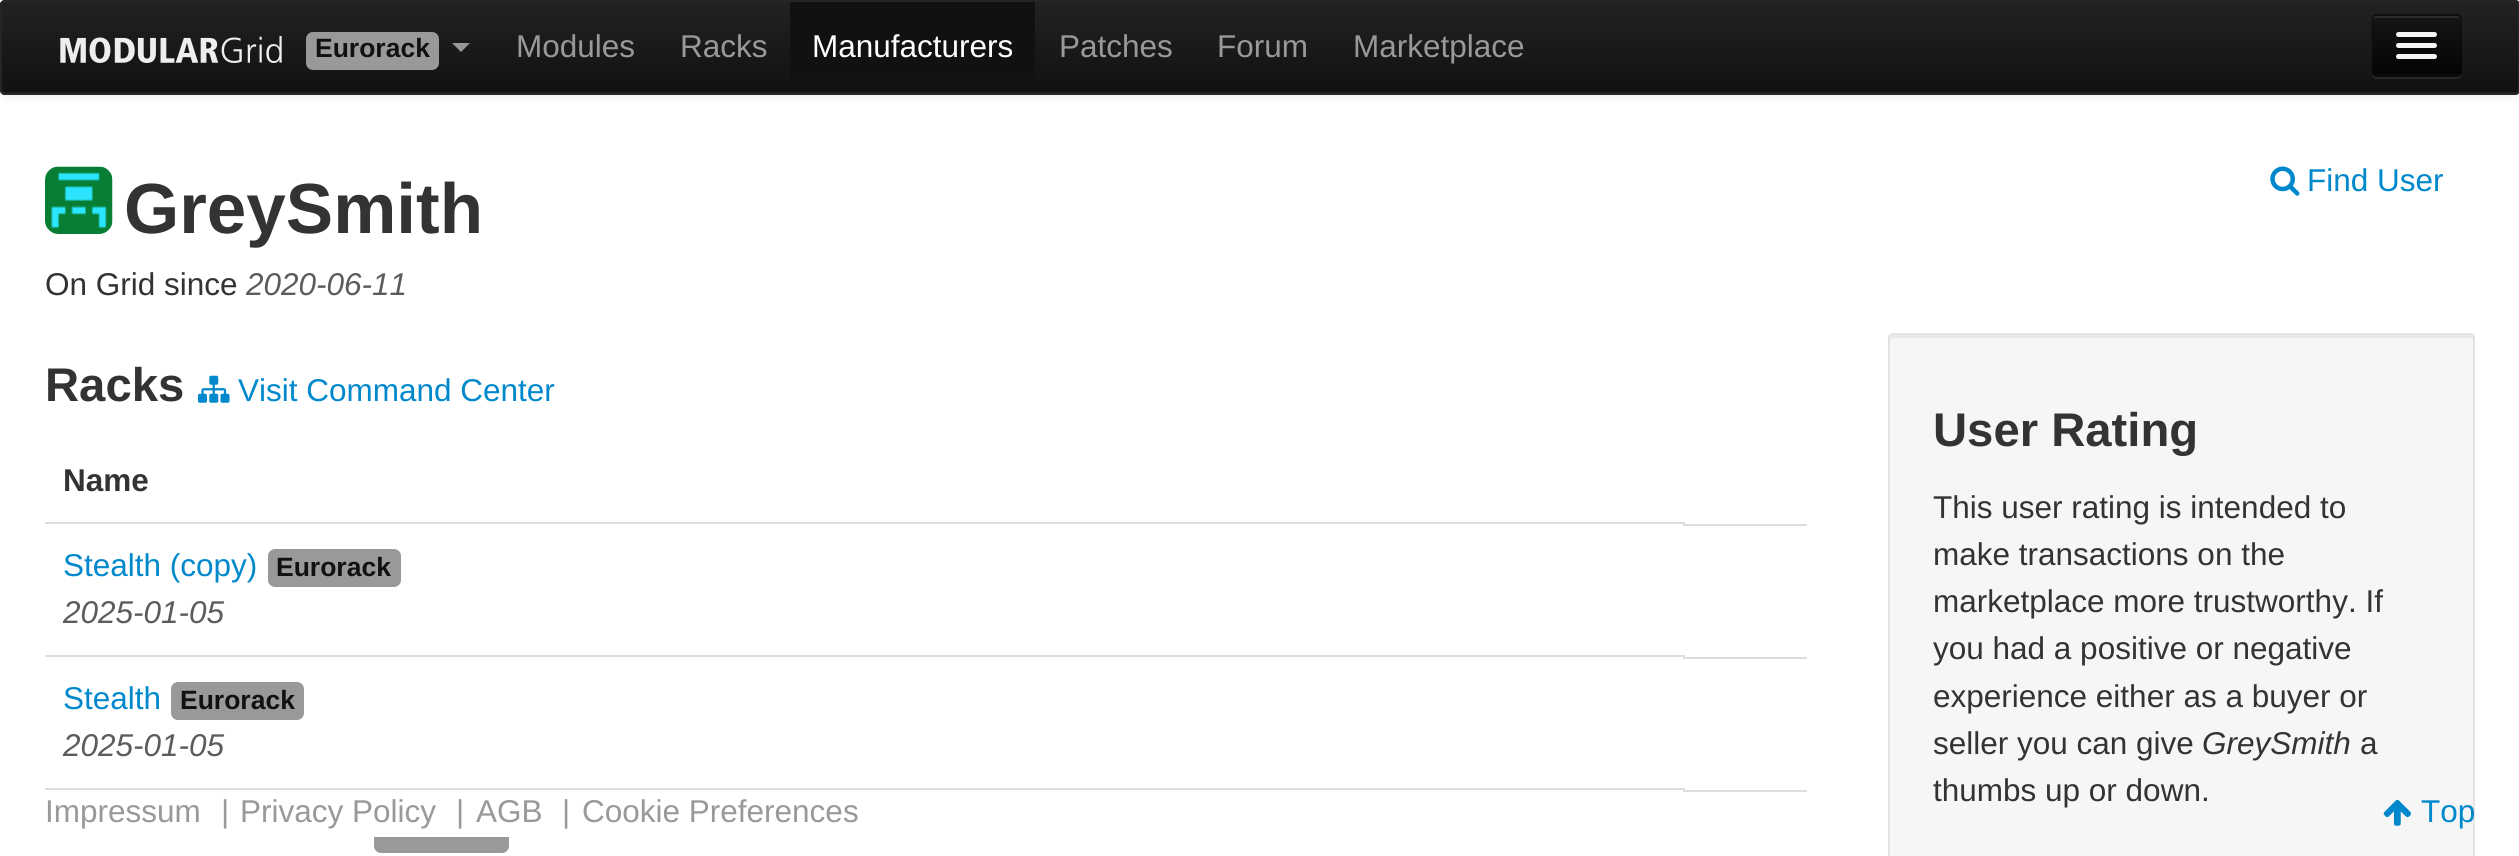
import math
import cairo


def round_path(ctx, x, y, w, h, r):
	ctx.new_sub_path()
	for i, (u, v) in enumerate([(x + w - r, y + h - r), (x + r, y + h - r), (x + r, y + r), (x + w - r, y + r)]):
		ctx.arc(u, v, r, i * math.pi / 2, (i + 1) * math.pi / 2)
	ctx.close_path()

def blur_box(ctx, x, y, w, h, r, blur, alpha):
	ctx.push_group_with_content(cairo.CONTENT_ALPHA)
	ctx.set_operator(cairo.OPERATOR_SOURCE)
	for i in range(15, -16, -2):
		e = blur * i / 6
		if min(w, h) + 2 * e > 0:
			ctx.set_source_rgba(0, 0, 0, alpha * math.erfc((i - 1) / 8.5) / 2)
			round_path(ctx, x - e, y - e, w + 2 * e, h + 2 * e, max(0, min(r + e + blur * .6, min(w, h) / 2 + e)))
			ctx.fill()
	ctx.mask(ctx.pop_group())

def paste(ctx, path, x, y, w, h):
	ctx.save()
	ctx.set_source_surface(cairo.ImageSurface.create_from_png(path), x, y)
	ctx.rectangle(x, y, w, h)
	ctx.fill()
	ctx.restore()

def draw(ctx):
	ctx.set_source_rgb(1, 1, 1)
	ctx.paint()
	ctx.set_source_rgb(0, 0, 0)
	blur_box(ctx, 0, 2, 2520, 95, 5, 4.5, 0.07)
	ctx.set_source_rgb(0.106, 0.106, 0.106)
	round_path(ctx, 0, 0, 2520, 95, 5)
	ctx.fill()
	ctx.save()
	round_path(ctx, 0, 0, 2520, 95, 5)
	ctx.clip()
	gradient = cairo.LinearGradient(1260, 2.2, 1260, 92)
	gradient.add_color_stop_rgba(0, 0.133, 0.133, 0.133, 1)
	gradient.add_color_stop_rgba(1, 0.067, 0.067, 0.067, 1)
	ctx.set_source(gradient)
	ctx.rectangle(0, 2, 2518, 90)
	ctx.fill()
	ctx.restore()
	round_path(ctx, 1, 1, 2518, 93, 4)
	ctx.set_source_rgb(0.145, 0.145, 0.145)
	ctx.stroke()
	paste(ctx, 'media/1.png', 60, 36, 222, 27)
	ctx.set_source_rgb(0.6, 0.6, 0.6)
	round_path(ctx, 306, 32, 133, 38, 7)
	ctx.fill()
	ctx.select_font_face('Liberation Sans', cairo.FONT_SLANT_NORMAL, cairo.FONT_WEIGHT_BOLD)
	ctx.set_font_size(26.5)
	ctx.set_source_rgb(0.067, 0.067, 0.067)
	ctx.move_to(315, 57)
	ctx.show_text('Eurorack')
	ctx.set_source_rgb(0.6, 0.6, 0.6)
	ctx.new_path()
	ctx.move_to(452, 43)
	ctx.line_to(470, 43)
	ctx.line_to(461, 52)
	ctx.close_path()
	ctx.fill()
	ctx.select_font_face('Liberation Sans')
	ctx.set_font_size(31.5)
	ctx.move_to(516, 57)
	ctx.show_text('Modules')
	ctx.move_to(680, 57)
	ctx.show_text('Racks')
	ctx.set_source_rgb(0.067, 0.067, 0.067)
	ctx.rectangle(790, 2, 245, 77)
	ctx.fill()
	ctx.set_source_rgb(1, 1, 1)
	ctx.move_to(812, 57)
	ctx.show_text('Manufacturers')
	ctx.set_source_rgb(0.6, 0.6, 0.6)
	for x, y, s in [
		(1059, 57, 'Patches'),
		(1217, 57, 'Forum'),
		(1353, 57, 'Marketplace'),
	]:
		ctx.move_to(x, y)
		ctx.show_text(s)
	ctx.set_source_rgb(0.149, 0.149, 0.149)
	ctx.new_path()
	ctx.move_to(2372, 74)
	ctx.curve_to(2372, 77, 2374, 79, 2377, 79)
	ctx.line_to(2457, 79)
	ctx.curve_to(2460, 79, 2462, 77, 2462, 74)
	ctx.line_to(2462, 21)
	ctx.line_to(2462, 19)
	ctx.line_to(2462, 72)
	ctx.curve_to(2462, 74, 2459, 76, 2457, 76)
	ctx.line_to(2376, 76)
	ctx.curve_to(2374, 76, 2373, 76, 2372, 74)
	ctx.close_path()
	ctx.fill()
	ctx.set_source_rgb(0.055, 0.055, 0.055)
	round_path(ctx, 2372, 14, 90, 63, 5)
	ctx.fill()
	ctx.save()
	round_path(ctx, 2372, 14, 90, 63, 5)
	ctx.clip()
	gradient = cairo.LinearGradient(2417, 16, 2417, 74)
	gradient.add_color_stop_rgba(0, 0.082, 0.082, 0.082, 1)
	gradient.add_color_stop_rgba(1, 0.016, 0.016, 0.016, 1)
	ctx.set_source(gradient)
	ctx.rectangle(2372, 16, 90, 58)
	ctx.fill()
	ctx.restore()
	ctx.set_source_rgb(0.173, 0.173, 0.173)
	ctx.new_path()
	ctx.move_to(2376, 18)
	ctx.line_to(2457, 18)
	ctx.curve_to(2458, 18, 2459, 19, 2459, 20)
	ctx.line_to(2459, 18)
	ctx.curve_to(2459, 17, 2458, 16, 2457, 16)
	ctx.line_to(2376, 16)
	ctx.curve_to(2375, 16, 2374, 17, 2374, 18)
	ctx.line_to(2374, 20)
	ctx.curve_to(2374, 19, 2375, 18, 2376, 18)
	ctx.close_path()
	ctx.fill()
	ctx.new_path()
	ctx.move_to(2459.5, 74.5)
	ctx.line_to(2457.5, 75.5)
	ctx.line_to(2375.5, 75.5)
	ctx.line_to(2373.5, 74.5)
	ctx.set_source_rgba(0, 0, 0, 0.25)
	ctx.set_line_width(2.2)
	ctx.stroke()
	ctx.new_path()
	ctx.move_to(2373.5, 74.5)
	ctx.curve_to(2371, 72, 2372.5, 63.5, 2372.5, 63)
	ctx.line_to(2372.5, 27)
	ctx.curve_to(2372.5, 11, 2372, 14.5, 2389.5, 14.5)
	ctx.line_to(2443.5, 14.5)
	ctx.curve_to(2461, 14.5, 2460.5, 11, 2460.5, 27)
	ctx.line_to(2460.5, 63)
	ctx.curve_to(2460.5, 63.5, 2462, 72, 2459.5, 74.5)
	ctx.set_source_rgba(0, 0, 0, 0.1)
	ctx.stroke()
	ctx.set_source_rgb(0.043, 0.043, 0.043)
	ctx.new_path()
	ctx.move_to(2397, 35)
	ctx.curve_to(2395, 36, 2396, 39, 2398, 39)
	ctx.line_to(2435, 39)
	ctx.curve_to(2437, 39, 2438, 36, 2436, 35)
	ctx.line_to(2435, 36)
	ctx.line_to(2398, 36)
	ctx.close_path()
	ctx.fill()
	ctx.set_source_rgb(0.961, 0.961, 0.961)
	round_path(ctx, 2396, 32, 41, 5, 2.5)
	ctx.fill()
	ctx.set_source_rgb(0.035, 0.035, 0.035)
	ctx.new_path()
	ctx.move_to(2396, 46)
	ctx.curve_to(2393, 51, 2404, 50, 2404, 50)
	ctx.line_to(2428, 50)
	ctx.curve_to(2429, 50, 2440, 51, 2437, 46)
	ctx.curve_to(2436, 47, 2435, 47, 2434, 47)
	ctx.line_to(2398, 47)
	ctx.curve_to(2398, 47, 2397, 47, 2396, 46)
	ctx.close_path()
	ctx.fill()
	ctx.set_source_rgb(0.961, 0.961, 0.961)
	round_path(ctx, 2396, 43, 41, 5, 2.5)
	ctx.fill()
	ctx.set_source_rgb(0.024, 0.024, 0.024)
	ctx.new_path()
	ctx.move_to(2396, 57)
	ctx.curve_to(2393, 62, 2404, 61, 2404, 61)
	ctx.line_to(2428, 61)
	ctx.curve_to(2429, 61, 2440, 62, 2437, 57)
	ctx.curve_to(2436, 58, 2435, 58, 2434, 58)
	ctx.line_to(2398, 58)
	ctx.curve_to(2398, 58, 2397, 58, 2396, 57)
	ctx.close_path()
	ctx.fill()
	ctx.set_source_rgb(0.961, 0.961, 0.961)
	round_path(ctx, 2396, 54, 41, 5, 2.5)
	ctx.fill()
	paste(ctx, 'media/2.png', 45, 166, 68, 68)
	ctx.select_font_face('Liberation Sans', cairo.FONT_SLANT_NORMAL, cairo.FONT_WEIGHT_BOLD)
	ctx.set_font_size(71)
	ctx.set_source_rgb(0.2, 0.2, 0.2)
	ctx.move_to(124, 233)
	ctx.show_text('GreySmith')
	ctx.select_font_face('Liberation Sans')
	ctx.set_font_size(31.5)
	ctx.move_to(45, 295)
	ctx.show_text('On Grid since')
	ctx.select_font_face('Liberation Sans', cairo.FONT_SLANT_ITALIC)
	ctx.set_source_rgb(0.361, 0.361, 0.361)
	ctx.move_to(246, 295)
	ctx.show_text('2020-06-11')
	paste(ctx, 'media/3.png', 2270, 166, 30, 30)
	ctx.select_font_face('Liberation Sans')
	ctx.set_source_rgb(0, 0.533, 0.8)
	ctx.move_to(2307, 191)
	ctx.show_text('Find User')
	ctx.select_font_face('Liberation Sans', cairo.FONT_SLANT_NORMAL, cairo.FONT_WEIGHT_BOLD)
	ctx.set_font_size(47.25)
	ctx.set_source_rgb(0.2, 0.2, 0.2)
	ctx.move_to(45, 401)
	ctx.show_text('Racks')
	paste(ctx, 'media/4.png', 198, 375, 32, 28)
	ctx.select_font_face('Liberation Sans')
	ctx.set_font_size(31.5)
	ctx.set_source_rgb(0, 0.533, 0.8)
	ctx.move_to(238, 401)
	ctx.show_text('Visit Command Center')
	ctx.select_font_face('Liberation Sans', cairo.FONT_SLANT_NORMAL, cairo.FONT_WEIGHT_BOLD)
	ctx.set_source_rgb(0.2, 0.2, 0.2)
	ctx.move_to(63, 491)
	ctx.show_text('Name')
	ctx.set_source_rgb(0.867, 0.867, 0.867)
	ctx.rectangle(1683, 524, 124, 2)
	ctx.fill()
	ctx.rectangle(45, 522, 1640, 2)
	ctx.fill()
	ctx.select_font_face('Liberation Sans')
	ctx.set_source_rgb(0, 0.533, 0.8)
	ctx.move_to(63, 576)
	ctx.show_text('Stealth (copy)')
	ctx.set_source_rgb(0.6, 0.6, 0.6)
	round_path(ctx, 268, 549, 133, 38, 7)
	ctx.fill()
	ctx.select_font_face('Liberation Sans', cairo.FONT_SLANT_NORMAL, cairo.FONT_WEIGHT_BOLD)
	ctx.set_font_size(26.5)
	ctx.set_source_rgb(0.067, 0.067, 0.067)
	ctx.move_to(276, 576)
	ctx.show_text('Eurorack')
	ctx.select_font_face('Liberation Sans', cairo.FONT_SLANT_ITALIC)
	ctx.set_font_size(31.5)
	ctx.set_source_rgb(0.361, 0.361, 0.361)
	ctx.move_to(63, 623)
	ctx.show_text('2025-01-05')
	ctx.set_source_rgb(0.867, 0.867, 0.867)
	ctx.rectangle(1683, 657, 124, 2)
	ctx.fill()
	ctx.rectangle(45, 655, 1640, 2)
	ctx.fill()
	ctx.select_font_face('Liberation Sans')
	ctx.set_source_rgb(0, 0.533, 0.8)
	ctx.move_to(63, 709)
	ctx.show_text('Stealth')
	ctx.set_source_rgb(0.6, 0.6, 0.6)
	round_path(ctx, 171, 682, 133, 38, 7)
	ctx.fill()
	ctx.select_font_face('Liberation Sans', cairo.FONT_SLANT_NORMAL, cairo.FONT_WEIGHT_BOLD)
	ctx.set_font_size(26.5)
	ctx.set_source_rgb(0.067, 0.067, 0.067)
	ctx.move_to(180, 709)
	ctx.show_text('Eurorack')
	ctx.select_font_face('Liberation Sans', cairo.FONT_SLANT_ITALIC)
	ctx.set_font_size(31.5)
	ctx.set_source_rgb(0.361, 0.361, 0.361)
	ctx.move_to(63, 756)
	ctx.show_text('2025-01-05')
	ctx.set_source_rgb(0.867, 0.867, 0.867)
	ctx.rectangle(45, 788, 1640, 2)
	ctx.fill()
	ctx.set_source_rgb(0.6, 0.6, 0.6)
	round_path(ctx, 374, 815, 135, 38, 7)
	ctx.fill()
	ctx.set_source_rgb(0.867, 0.867, 0.867)
	ctx.rectangle(1683, 790, 124, 2)
	ctx.fill()
	ctx.set_source_rgb(0.961, 0.961, 0.961)
	round_path(ctx, 1888, 333, 587, 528, 5)
	ctx.fill()
	ctx.set_source_rgb(0.914, 0.914, 0.914)
	ctx.new_path()
	ctx.move_to(1892, 338)
	ctx.line_to(2470, 338)
	ctx.curve_to(2472, 338, 2473, 339, 2473, 340)
	ctx.line_to(2473, 337)
	ctx.curve_to(2473, 336, 2472, 335, 2471, 335)
	ctx.line_to(1892, 335)
	ctx.curve_to(1891, 335, 1890, 336, 1890, 337)
	ctx.line_to(1890, 340)
	ctx.curve_to(1890, 339, 1891, 338, 1892, 338)
	ctx.close_path()
	ctx.fill()
	round_path(ctx, 1889, 334, 585, 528, 4)
	ctx.set_source_rgb(0.89, 0.89, 0.89)
	ctx.set_line_width(2)
	ctx.stroke()
	ctx.select_font_face('Liberation Sans', cairo.FONT_SLANT_NORMAL, cairo.FONT_WEIGHT_BOLD)
	ctx.set_font_size(47.25)
	ctx.set_source_rgb(0.2, 0.2, 0.2)
	ctx.move_to(1933, 446)
	ctx.show_text('User Rating')
	ctx.select_font_face('Liberation Sans')
	ctx.set_font_size(31.5)
	for x, y, s in [
		(1933, 518, 'This user rating is intended to'),
		(1933, 565, 'make transactions on the'),
		(1933, 612, 'marketplace more trustworthy. If'),
		(1933, 659, 'you had a positive or negative'),
		(1933, 707, 'experience either as a buyer or'),
		(1933, 754, 'seller you can give'),
	]:
		ctx.move_to(x, y)
		ctx.show_text(s)
	ctx.select_font_face('Liberation Sans', cairo.FONT_SLANT_ITALIC)
	ctx.move_to(2202, 754)
	ctx.show_text('GreySmith')
	ctx.select_font_face('Liberation Sans')
	ctx.move_to(2360, 754)
	ctx.show_text('a')
	ctx.move_to(1933, 801)
	ctx.show_text('thumbs up or down.')
	ctx.set_source_rgb(0.6, 0.6, 0.6)
	ctx.move_to(45, 822)
	ctx.show_text('Impressum')
	ctx.move_to(221, 822)
	ctx.show_text('|')
	ctx.set_source_rgb(1, 1, 1)
	ctx.rectangle(374, 815, 135, 22)
	ctx.fill()
	ctx.set_source_rgb(0.6, 0.6, 0.6)
	for x, y, s in [
		(240, 822, 'Privacy Policy'),
		(456, 822, '|'),
		(476, 822, 'AGB'),
		(562, 822, '|'),
		(582, 822, 'Cookie Preferences'),
	]:
		ctx.move_to(x, y)
		ctx.show_text(s)
	paste(ctx, 'media/5.png', 2383, 799, 29, 27)
	ctx.set_source_rgb(0, 0.533, 0.8)
	ctx.move_to(2421, 822)
	ctx.show_text('Top')


surface = cairo.ImageSurface(cairo.FORMAT_RGB24, 2519, 856)
ctx = cairo.Context(surface)
options = cairo.FontOptions()
options.set_hint_metrics(cairo.HINT_METRICS_OFF)
options.set_hint_style(cairo.HINT_STYLE_NONE)
ctx.set_font_options(options)
ctx.set_miter_limit(4)
draw(ctx)
surface.write_to_png('image.png')
